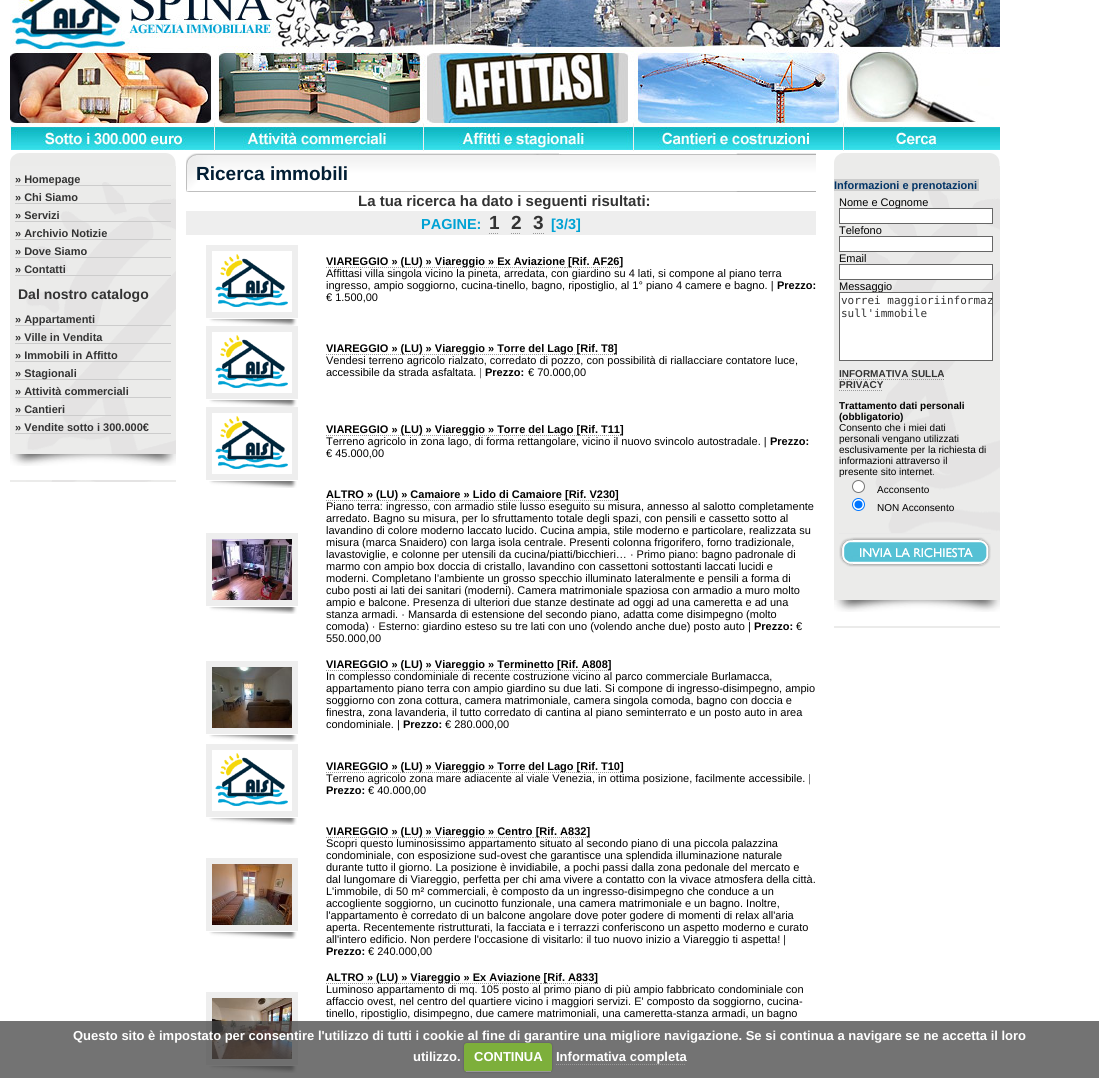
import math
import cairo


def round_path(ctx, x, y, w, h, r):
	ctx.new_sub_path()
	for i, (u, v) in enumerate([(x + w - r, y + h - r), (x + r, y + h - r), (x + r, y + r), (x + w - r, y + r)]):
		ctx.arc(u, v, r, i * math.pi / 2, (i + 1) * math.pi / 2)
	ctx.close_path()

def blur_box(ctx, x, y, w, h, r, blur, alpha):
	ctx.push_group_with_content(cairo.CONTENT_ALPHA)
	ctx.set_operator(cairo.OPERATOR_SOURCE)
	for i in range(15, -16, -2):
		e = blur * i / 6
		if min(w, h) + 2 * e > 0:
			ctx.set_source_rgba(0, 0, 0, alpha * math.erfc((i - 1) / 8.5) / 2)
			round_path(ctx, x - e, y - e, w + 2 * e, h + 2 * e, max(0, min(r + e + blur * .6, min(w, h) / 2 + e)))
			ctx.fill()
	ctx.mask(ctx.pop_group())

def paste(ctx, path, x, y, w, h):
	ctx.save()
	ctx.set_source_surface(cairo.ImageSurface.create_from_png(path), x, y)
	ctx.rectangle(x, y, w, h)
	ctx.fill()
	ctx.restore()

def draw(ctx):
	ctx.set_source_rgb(1, 1, 1)
	ctx.paint()
	paste(ctx, 'media/1.png', 10, 0, 990, 151)
	ctx.set_source_rgb(0.922, 0.922, 0.918)
	ctx.rectangle(10, 166, 166, 316)
	ctx.fill()
	paste(ctx, 'media/2.png', 26, 182, 150, 300)
	paste(ctx, 'media/3.png', 10, 153, 166, 13)
	ctx.set_source_rgb(0.8, 0.8, 0.8)
	ctx.rectangle(15, 185, 156, 1)
	ctx.fill()
	ctx.select_font_face('Liberation Sans', cairo.FONT_SLANT_NORMAL, cairo.FONT_WEIGHT_BOLD)
	ctx.set_font_size(11)
	ctx.set_source_rgb(0.2, 0.2, 0.2)
	ctx.move_to(15, 183)
	ctx.show_text('» Homepage')
	ctx.set_source_rgb(0.8, 0.8, 0.8)
	ctx.rectangle(15, 203, 156, 1)
	ctx.fill()
	ctx.set_source_rgb(0.2, 0.2, 0.2)
	ctx.move_to(15, 201)
	ctx.show_text('» Chi Siamo')
	ctx.set_source_rgb(0.8, 0.8, 0.8)
	ctx.rectangle(15, 221, 156, 1)
	ctx.fill()
	ctx.set_source_rgb(0.2, 0.2, 0.2)
	ctx.move_to(15, 219)
	ctx.show_text('» Servizi')
	ctx.set_source_rgb(0.8, 0.8, 0.8)
	ctx.rectangle(15, 239, 156, 1)
	ctx.fill()
	ctx.set_source_rgb(0.2, 0.2, 0.2)
	ctx.move_to(15, 237)
	ctx.show_text('» Archivio Notizie')
	ctx.set_source_rgb(0.8, 0.8, 0.8)
	ctx.rectangle(15, 257, 156, 1)
	ctx.fill()
	ctx.set_source_rgb(0.2, 0.2, 0.2)
	ctx.move_to(15, 255)
	ctx.show_text('» Dove Siamo')
	ctx.set_source_rgb(0.8, 0.8, 0.8)
	ctx.rectangle(15, 275, 156, 1)
	ctx.fill()
	ctx.set_source_rgb(0.2, 0.2, 0.2)
	ctx.move_to(15, 273)
	ctx.show_text('» Contatti')
	ctx.set_font_size(14)
	ctx.move_to(18, 299)
	ctx.show_text('Dal nostro catalogo')
	ctx.set_source_rgb(0.8, 0.8, 0.8)
	ctx.rectangle(15, 325, 156, 1)
	ctx.fill()
	ctx.set_font_size(11)
	ctx.set_source_rgb(0.2, 0.2, 0.2)
	ctx.move_to(15, 323)
	ctx.show_text('» Appartamenti')
	ctx.set_source_rgb(0.8, 0.8, 0.8)
	ctx.rectangle(15, 343, 156, 1)
	ctx.fill()
	ctx.set_source_rgb(0.2, 0.2, 0.2)
	ctx.move_to(15, 341)
	ctx.show_text('» Ville in Vendita')
	ctx.set_source_rgb(0.8, 0.8, 0.8)
	ctx.rectangle(15, 361, 156, 1)
	ctx.fill()
	ctx.set_source_rgb(0.2, 0.2, 0.2)
	ctx.move_to(15, 359)
	ctx.show_text('» Immobili in Affitto')
	ctx.set_source_rgb(0.8, 0.8, 0.8)
	ctx.rectangle(15, 379, 156, 1)
	ctx.fill()
	ctx.set_source_rgb(0.2, 0.2, 0.2)
	ctx.move_to(15, 377)
	ctx.show_text('» Stagionali')
	ctx.set_source_rgb(0.8, 0.8, 0.8)
	ctx.rectangle(15, 397, 156, 1)
	ctx.fill()
	ctx.set_source_rgb(0.2, 0.2, 0.2)
	ctx.move_to(15, 395)
	ctx.show_text('» Attività commerciali')
	ctx.set_source_rgb(0.8, 0.8, 0.8)
	ctx.rectangle(15, 415, 156, 1)
	ctx.fill()
	ctx.set_source_rgb(0.2, 0.2, 0.2)
	ctx.move_to(15, 413)
	ctx.show_text('» Cantieri')
	ctx.set_source_rgb(0.8, 0.8, 0.8)
	ctx.rectangle(15, 433, 156, 1)
	ctx.fill()
	ctx.set_source_rgb(0.2, 0.2, 0.2)
	ctx.move_to(15, 431)
	ctx.show_text('» Vendite sotto i 300.000€')
	paste(ctx, 'media/4.png', 10, 454, 166, 26)
	paste(ctx, 'media/5.png', 186, 153, 630, 39)
	ctx.set_font_size(19)
	ctx.set_source_rgb(0.008, 0.118, 0.204)
	ctx.move_to(196, 180)
	ctx.show_text('Ricerca immobili')
	ctx.set_font_size(15)
	ctx.set_source_rgb(0.2, 0.2, 0.2)
	ctx.move_to(358, 206)
	ctx.show_text('La tua ricerca ha dato i seguenti risultati:')
	ctx.set_source_rgb(0.933, 0.933, 0.933)
	ctx.rectangle(186, 211, 630, 24)
	ctx.fill()
	ctx.set_font_size(14.5)
	ctx.set_source_rgb(0, 0.635, 0.831)
	ctx.move_to(421, 229)
	ctx.show_text('PAGINE:')
	ctx.set_font_size(19)
	ctx.set_source_rgb(0.2, 0.2, 0.2)
	ctx.move_to(489, 229)
	ctx.show_text('1')
	ctx.new_path()
	ctx.move_to(489, 233.5)
	ctx.line_to(499, 233.5)
	ctx.set_source_rgb(0.6, 0.6, 0.6)
	ctx.set_line_width(1)
	ctx.set_dash([1, 1])
	ctx.stroke()
	ctx.set_source_rgb(0.2, 0.2, 0.2)
	ctx.move_to(511, 229)
	ctx.show_text('2')
	ctx.new_path()
	ctx.move_to(511, 233.5)
	ctx.line_to(521, 233.5)
	ctx.set_source_rgb(0.6, 0.6, 0.6)
	ctx.stroke()
	ctx.set_source_rgb(0.2, 0.2, 0.2)
	ctx.move_to(533, 229)
	ctx.show_text('3')
	ctx.new_path()
	ctx.move_to(533, 233.5)
	ctx.line_to(544, 233.5)
	ctx.set_source_rgb(0.6, 0.6, 0.6)
	ctx.stroke()
	ctx.set_font_size(14.5)
	ctx.set_source_rgb(0, 0.635, 0.831)
	ctx.move_to(551, 229)
	ctx.show_text('[3/3]')
	paste(ctx, 'media/6.png', 209, 319, 88, 7)
	ctx.rectangle(209, 248, 86, 67)
	ctx.set_source_rgb(0.933, 0.933, 0.933)
	ctx.set_line_width(6)
	ctx.set_dash([])
	ctx.stroke()
	paste(ctx, 'media/7.png', 215, 254, 73, 53)
	ctx.new_path()
	ctx.move_to(326, 267.5)
	ctx.line_to(565, 267.5)
	ctx.set_source_rgb(0.6, 0.6, 0.6)
	ctx.set_line_width(1)
	ctx.set_dash([1, 1])
	ctx.stroke()
	ctx.new_path()
	ctx.move_to(565, 267.5)
	ctx.line_to(623, 267.5)
	ctx.stroke()
	ctx.set_font_size(11)
	ctx.set_source_rgb(0, 0, 0)
	ctx.move_to(326, 265)
	ctx.show_text('VIAREGGIO » (LU) » Viareggio » Ex Aviazione [Rif. AF26]')
	ctx.select_font_face('Liberation Sans')
	ctx.move_to(326, 277)
	ctx.show_text('Affittasi villa singola vicino la pineta, arredata, con giardino su 4 lati, si compone al piano terra')
	ctx.move_to(326, 289)
	ctx.show_text('ingresso, ampio soggiorno, cucina-tinello, bagno, ripostiglio, al 1° piano 4 camere e bagno. |')
	ctx.select_font_face('Liberation Sans', cairo.FONT_SLANT_NORMAL, cairo.FONT_WEIGHT_BOLD)
	ctx.move_to(777, 289)
	ctx.show_text('Prezzo:')
	ctx.select_font_face('Liberation Sans')
	ctx.move_to(326, 301)
	ctx.show_text('€ 1.500,00')
	paste(ctx, 'media/6.png', 209, 400, 88, 7)
	ctx.rectangle(209, 329, 86, 67)
	ctx.set_source_rgb(0.933, 0.933, 0.933)
	ctx.set_line_width(6)
	ctx.set_dash([])
	ctx.stroke()
	paste(ctx, 'media/7.png', 215, 335, 73, 53)
	ctx.new_path()
	ctx.move_to(326, 354.5)
	ctx.line_to(574, 354.5)
	ctx.set_source_rgb(0.6, 0.6, 0.6)
	ctx.set_line_width(1)
	ctx.set_dash([1, 1])
	ctx.stroke()
	ctx.new_path()
	ctx.move_to(574, 354.5)
	ctx.line_to(618, 354.5)
	ctx.stroke()
	ctx.select_font_face('Liberation Sans', cairo.FONT_SLANT_NORMAL, cairo.FONT_WEIGHT_BOLD)
	ctx.set_source_rgb(0, 0, 0)
	ctx.move_to(326, 352)
	ctx.show_text('VIAREGGIO » (LU) » Viareggio » Torre del Lago [Rif. T8]')
	ctx.select_font_face('Liberation Sans')
	ctx.move_to(326, 364)
	ctx.show_text('Vendesi terreno agricolo rialzato, corredato di pozzo, con possibilità di riallacciare contatore luce,')
	ctx.move_to(326, 376)
	ctx.show_text('accessibile da strada asfaltata. |')
	ctx.select_font_face('Liberation Sans', cairo.FONT_SLANT_NORMAL, cairo.FONT_WEIGHT_BOLD)
	ctx.move_to(485, 376)
	ctx.show_text('Prezzo:')
	ctx.select_font_face('Liberation Sans')
	ctx.move_to(528, 376)
	ctx.show_text('€ 70.000,00')
	paste(ctx, 'media/6.png', 209, 481, 88, 7)
	ctx.rectangle(209, 410, 86, 67)
	ctx.set_source_rgb(0.933, 0.933, 0.933)
	ctx.set_line_width(6)
	ctx.set_dash([])
	ctx.stroke()
	paste(ctx, 'media/7.png', 215, 416, 73, 53)
	ctx.new_path()
	ctx.move_to(326, 435.5)
	ctx.line_to(574, 435.5)
	ctx.set_source_rgb(0.6, 0.6, 0.6)
	ctx.set_line_width(1)
	ctx.set_dash([1, 1])
	ctx.stroke()
	ctx.new_path()
	ctx.move_to(574, 435.5)
	ctx.line_to(624, 435.5)
	ctx.stroke()
	ctx.select_font_face('Liberation Sans', cairo.FONT_SLANT_NORMAL, cairo.FONT_WEIGHT_BOLD)
	ctx.set_source_rgb(0, 0, 0)
	ctx.move_to(326, 433)
	ctx.show_text('VIAREGGIO » (LU) » Viareggio » Torre del Lago [Rif. T11]')
	ctx.select_font_face('Liberation Sans')
	ctx.move_to(326, 445)
	ctx.show_text('Terreno agricolo in zona lago, di forma rettangolare, vicino il nuovo svincolo autostradale. |')
	ctx.select_font_face('Liberation Sans', cairo.FONT_SLANT_NORMAL, cairo.FONT_WEIGHT_BOLD)
	ctx.move_to(770, 445)
	ctx.show_text('Prezzo:')
	ctx.select_font_face('Liberation Sans')
	ctx.move_to(326, 457)
	ctx.show_text('€ 45.000,00')
	paste(ctx, 'media/6.png', 209, 607, 88, 7)
	ctx.rectangle(209, 536, 86, 67)
	ctx.set_source_rgb(0.933, 0.933, 0.933)
	ctx.set_line_width(6)
	ctx.set_dash([])
	ctx.stroke()
	paste(ctx, 'media/8.png', 212, 539, 80, 61)
	ctx.new_path()
	ctx.move_to(326, 500.5)
	ctx.line_to(562, 500.5)
	ctx.set_source_rgb(0.6, 0.6, 0.6)
	ctx.set_line_width(1)
	ctx.set_dash([1, 1])
	ctx.stroke()
	ctx.new_path()
	ctx.move_to(562, 500.5)
	ctx.line_to(619, 500.5)
	ctx.stroke()
	ctx.select_font_face('Liberation Sans', cairo.FONT_SLANT_NORMAL, cairo.FONT_WEIGHT_BOLD)
	ctx.set_source_rgb(0, 0, 0)
	ctx.move_to(326, 498)
	ctx.show_text('ALTRO » (LU) » Camaiore » Lido di Camaiore [Rif. V230]')
	ctx.select_font_face('Liberation Sans')
	for x, y, s in [
		(326, 510, 'Piano terra: ingresso, con armadio stile lusso eseguito su misura, annesso al salotto completamente'),
		(326, 522, 'arredato. Bagno su misura, per lo sfruttamento totale degli spazi, con pensili e cassetto sotto al'),
		(326, 534, 'lavandino di colore moderno laccato lucido. Cucina ampia, stile moderno e particolare, realizzata su'),
		(326, 546, 'misura (marca Snaidero) con larga isola centrale. Presenti colonna frigorifero, forno tradizionale,'),
		(326, 558, 'lavastoviglie, e colonne per utensili da cucina/piatti/bicchieri… · Primo piano: bagno padronale di'),
		(326, 570, 'marmo con ampio box doccia di cristallo, lavandino con cassettoni sottostanti laccati lucidi e'),
		(326, 582, 'moderni. Completano l’ambiente un grosso specchio illuminato lateralmente e pensili a forma di'),
		(326, 594, 'cubo posti ai lati dei sanitari (moderni). Camera matrimoniale spaziosa con armadio a muro molto'),
		(326, 606, 'ampio e balcone. Presenza di ulteriori due stanze destinate ad oggi ad una cameretta e ad una'),
		(326, 618, 'stanza armadi. · Mansarda di estensione del secondo piano, adatta come disimpegno (molto'),
		(326, 630, 'comoda) · Esterno: giardino esteso su tre lati con uno (volendo anche due) posto auto |'),
	]:
		ctx.move_to(x, y)
		ctx.show_text(s)
	ctx.select_font_face('Liberation Sans', cairo.FONT_SLANT_NORMAL, cairo.FONT_WEIGHT_BOLD)
	ctx.move_to(754, 630)
	ctx.show_text('Prezzo:')
	ctx.select_font_face('Liberation Sans')
	ctx.move_to(796, 630)
	ctx.show_text('€')
	ctx.move_to(326, 642)
	ctx.show_text('550.000,00')
	paste(ctx, 'media/6.png', 209, 735, 88, 7)
	ctx.rectangle(209, 664, 86, 67)
	ctx.set_source_rgb(0.933, 0.933, 0.933)
	ctx.set_line_width(6)
	ctx.set_dash([])
	ctx.stroke()
	paste(ctx, 'media/9.png', 212, 667, 80, 61)
	ctx.new_path()
	ctx.move_to(326, 670.5)
	ctx.line_to(554, 670.5)
	ctx.set_source_rgb(0.6, 0.6, 0.6)
	ctx.set_line_width(1)
	ctx.set_dash([1, 1])
	ctx.stroke()
	ctx.new_path()
	ctx.move_to(554, 670.5)
	ctx.line_to(611, 670.5)
	ctx.stroke()
	ctx.select_font_face('Liberation Sans', cairo.FONT_SLANT_NORMAL, cairo.FONT_WEIGHT_BOLD)
	ctx.set_source_rgb(0, 0, 0)
	ctx.move_to(326, 668)
	ctx.show_text('VIAREGGIO » (LU) » Viareggio » Terminetto [Rif. A808]')
	ctx.select_font_face('Liberation Sans')
	for x, y, s in [
		(326, 680, 'In complesso condominiale di recente costruzione vicino al parco commerciale Burlamacca,'),
		(326, 692, 'appartamento piano terra con ampio giardino su due lati. Si compone di ingresso-disimpegno, ampio'),
		(326, 704, 'soggiorno con zona cottura, camera matrimoniale, camera singola comoda, bagno con doccia e'),
		(326, 716, 'finestra, zona lavanderia, il tutto corredato di cantina al piano seminterrato e un posto auto in area'),
		(326, 728, 'condominiale. |'),
	]:
		ctx.move_to(x, y)
		ctx.show_text(s)
	ctx.select_font_face('Liberation Sans', cairo.FONT_SLANT_NORMAL, cairo.FONT_WEIGHT_BOLD)
	ctx.move_to(403, 728)
	ctx.show_text('Prezzo:')
	ctx.select_font_face('Liberation Sans')
	ctx.move_to(445, 728)
	ctx.show_text('€ 280.000,00')
	paste(ctx, 'media/6.png', 209, 818, 88, 7)
	ctx.rectangle(209, 747, 86, 67)
	ctx.set_source_rgb(0.933, 0.933, 0.933)
	ctx.set_line_width(6)
	ctx.set_dash([])
	ctx.stroke()
	paste(ctx, 'media/7.png', 215, 753, 73, 53)
	ctx.new_path()
	ctx.move_to(326, 772.5)
	ctx.line_to(574, 772.5)
	ctx.set_source_rgb(0.6, 0.6, 0.6)
	ctx.set_line_width(1)
	ctx.set_dash([1, 1])
	ctx.stroke()
	ctx.new_path()
	ctx.move_to(574, 772.5)
	ctx.line_to(624, 772.5)
	ctx.stroke()
	ctx.select_font_face('Liberation Sans', cairo.FONT_SLANT_NORMAL, cairo.FONT_WEIGHT_BOLD)
	ctx.set_source_rgb(0, 0, 0)
	ctx.move_to(326, 770)
	ctx.show_text('VIAREGGIO » (LU) » Viareggio » Torre del Lago [Rif. T10]')
	ctx.select_font_face('Liberation Sans')
	ctx.move_to(326, 782)
	ctx.show_text('Terreno agricolo zona mare adiacente al viale Venezia, in ottima posizione, facilmente accessibile. |')
	ctx.select_font_face('Liberation Sans', cairo.FONT_SLANT_NORMAL, cairo.FONT_WEIGHT_BOLD)
	ctx.move_to(326, 794)
	ctx.show_text('Prezzo:')
	ctx.select_font_face('Liberation Sans')
	ctx.move_to(368, 794)
	ctx.show_text('€ 40.000,00')
	paste(ctx, 'media/6.png', 209, 932, 88, 7)
	ctx.rectangle(209, 861, 86, 67)
	ctx.set_source_rgb(0.933, 0.933, 0.933)
	ctx.set_line_width(6)
	ctx.set_dash([])
	ctx.stroke()
	paste(ctx, 'media/10.png', 212, 864, 80, 61)
	ctx.new_path()
	ctx.move_to(326, 837.5)
	ctx.line_to(533, 837.5)
	ctx.set_source_rgb(0.6, 0.6, 0.6)
	ctx.set_line_width(1)
	ctx.set_dash([1, 1])
	ctx.stroke()
	ctx.new_path()
	ctx.move_to(533, 837.5)
	ctx.line_to(590, 837.5)
	ctx.stroke()
	ctx.select_font_face('Liberation Sans', cairo.FONT_SLANT_NORMAL, cairo.FONT_WEIGHT_BOLD)
	ctx.set_source_rgb(0, 0, 0)
	ctx.move_to(326, 835)
	ctx.show_text('VIAREGGIO » (LU) » Viareggio » Centro [Rif. A832]')
	ctx.select_font_face('Liberation Sans')
	for x, y, s in [
		(326, 847, 'Scopri questo luminosissimo appartamento situato al secondo piano di una piccola palazzina'),
		(326, 859, 'condominiale, con esposizione sud-ovest che garantisce una splendida illuminazione naturale'),
		(326, 871, 'durante tutto il giorno. La posizione è invidiabile, a pochi passi dalla zona pedonale del mercato e'),
		(326, 883, 'dal lungomare di Viareggio, perfetta per chi ama vivere a contatto con la vivace atmosfera della città.'),
		(326, 895, 'L\'immobile, di 50 m² commerciali, è composto da un ingresso-disimpegno che conduce a un'),
		(326, 907, 'accogliente soggiorno, un cucinotto funzionale, una camera matrimoniale e un bagno. Inoltre,'),
		(326, 919, 'l\'appartamento è corredato di un balcone angolare dove poter godere di momenti di relax all\'aria'),
		(326, 931, 'aperta. Recentemente ristrutturati, la facciata e i terrazzi conferiscono un aspetto moderno e curato'),
		(326, 943, 'all\'intero edificio. Non perdere l\'occasione di visitarlo: il tuo nuovo inizio a Viareggio ti aspetta! |'),
	]:
		ctx.move_to(x, y)
		ctx.show_text(s)
	ctx.select_font_face('Liberation Sans', cairo.FONT_SLANT_NORMAL, cairo.FONT_WEIGHT_BOLD)
	ctx.move_to(326, 955)
	ctx.show_text('Prezzo:')
	ctx.select_font_face('Liberation Sans')
	ctx.move_to(368, 955)
	ctx.show_text('€ 240.000,00')
	paste(ctx, 'media/6.png', 209, 1066, 88, 7)
	ctx.rectangle(209, 995, 86, 67)
	ctx.set_source_rgb(0.933, 0.933, 0.933)
	ctx.set_line_width(6)
	ctx.set_dash([])
	ctx.stroke()
	paste(ctx, 'media/11.png', 212, 998, 80, 61)
	ctx.new_path()
	ctx.move_to(326, 983.5)
	ctx.line_to(541, 983.5)
	ctx.set_source_rgb(0.6, 0.6, 0.6)
	ctx.set_line_width(1)
	ctx.set_dash([1, 1])
	ctx.stroke()
	ctx.new_path()
	ctx.move_to(541, 983.5)
	ctx.line_to(598, 983.5)
	ctx.stroke()
	ctx.select_font_face('Liberation Sans', cairo.FONT_SLANT_NORMAL, cairo.FONT_WEIGHT_BOLD)
	ctx.set_source_rgb(0, 0, 0)
	ctx.move_to(326, 981)
	ctx.show_text('ALTRO » (LU) » Viareggio » Ex Aviazione [Rif. A833]')
	ctx.select_font_face('Liberation Sans')
	for x, y, s in [
		(326, 993, 'Luminoso appartamento di mq. 105 posto al primo piano di più ampio fabbricato condominiale con'),
		(326, 1005, 'affaccio ovest, nel centro del quartiere vicino i maggiori servizi. E\' composto da soggiorno, cucina-'),
		(326, 1017, 'tinello, ripostiglio, disimpegno, due camere matrimoniali, una cameretta-stanza armadi, un bagno'),
	]:
		ctx.move_to(x, y)
		ctx.show_text(s)
	paste(ctx, 'media/12.png', 834, 166, 166, 462)
	paste(ctx, 'media/3.png', 834, 153, 166, 13)
	ctx.set_source_rgb(0.8, 0.8, 0.8)
	ctx.rectangle(834, 179, 145, 12)
	ctx.fill()
	ctx.select_font_face('Liberation Sans', cairo.FONT_SLANT_NORMAL, cairo.FONT_WEIGHT_BOLD)
	ctx.set_source_rgb(0, 0.2, 0.4)
	ctx.move_to(834, 189)
	ctx.show_text('Informazioni e prenotazioni')
	ctx.select_font_face('Liberation Sans')
	ctx.set_source_rgb(0, 0, 0)
	ctx.move_to(839, 206)
	ctx.show_text('Nome e Cognome')
	ctx.set_source_rgb(1, 1, 1)
	ctx.rectangle(839.5, 208.5, 153, 15)
	ctx.fill_preserve()
	ctx.set_source_rgb(0.4, 0.4, 0.4)
	ctx.set_dash([])
	ctx.stroke()
	ctx.set_source_rgb(0, 0, 0)
	ctx.move_to(839, 234)
	ctx.show_text('Telefono')
	ctx.set_source_rgb(1, 1, 1)
	ctx.rectangle(839.5, 236.5, 153, 15)
	ctx.fill_preserve()
	ctx.set_source_rgb(0.4, 0.4, 0.4)
	ctx.stroke()
	ctx.set_source_rgb(0, 0, 0)
	ctx.move_to(839, 262)
	ctx.show_text('Email')
	ctx.set_source_rgb(1, 1, 1)
	ctx.rectangle(839.5, 264.5, 153, 15)
	ctx.fill_preserve()
	ctx.set_source_rgb(0.4, 0.4, 0.4)
	ctx.stroke()
	ctx.set_source_rgb(0, 0, 0)
	ctx.move_to(839, 290)
	ctx.show_text('Messaggio')
	ctx.set_source_rgb(1, 1, 1)
	ctx.rectangle(839.5, 292.5, 153, 68)
	ctx.fill_preserve()
	ctx.set_source_rgb(0.4, 0.4, 0.4)
	ctx.stroke()
	ctx.select_font_face('DejaVu Sans Mono')
	ctx.set_source_rgb(0.2, 0.2, 0.2)
	ctx.move_to(841, 304)
	ctx.show_text('vorrei maggioriinformaz')
	ctx.move_to(841, 317)
	ctx.show_text('sull\'immobile')
	ctx.select_font_face('Liberation Sans', cairo.FONT_SLANT_NORMAL, cairo.FONT_WEIGHT_BOLD)
	ctx.set_font_size(10)
	ctx.move_to(839, 377)
	ctx.show_text('INFORMATIVA SULLA')
	ctx.new_path()
	ctx.move_to(839, 379.5)
	ctx.line_to(945, 379.5)
	ctx.set_source_rgb(0.6, 0.6, 0.6)
	ctx.set_dash([1, 1])
	ctx.stroke()
	ctx.set_source_rgb(0.2, 0.2, 0.2)
	ctx.move_to(839, 388)
	ctx.show_text('PRIVACY')
	ctx.new_path()
	ctx.move_to(839, 390.5)
	ctx.line_to(883, 390.5)
	ctx.set_source_rgb(0.6, 0.6, 0.6)
	ctx.stroke()
	ctx.set_source_rgb(0, 0, 0)
	ctx.move_to(839, 409)
	ctx.show_text('Trattamento dati personali')
	ctx.move_to(839, 420)
	ctx.show_text('(obbligatorio)')
	ctx.select_font_face('Liberation Sans')
	for x, y, s in [
		(839, 431, 'Consento che i miei dati'),
		(839, 442, 'personali vengano utilizzati'),
		(839, 453, 'esclusivamente per la richiesta di'),
		(839, 464, 'informazioni attraverso il'),
		(839, 475, 'presente sito internet.'),
	]:
		ctx.move_to(x, y)
		ctx.show_text(s)
	ctx.set_source_rgb(1, 1, 1)
	ctx.new_path()
	ctx.arc(858.5, 486.5, 6, 0, 2 * math.pi)
	ctx.fill_preserve()
	ctx.set_source_rgb(0.463, 0.463, 0.463)
	ctx.set_dash([])
	ctx.stroke()
	ctx.set_source_rgb(0, 0, 0)
	ctx.move_to(877, 493)
	ctx.show_text('Acconsento')
	ctx.set_source_rgb(1, 1, 1)
	ctx.new_path()
	ctx.arc(858.5, 504.5, 6, 0, 2 * math.pi)
	ctx.fill_preserve()
	ctx.set_source_rgb(0, 0.459, 1)
	ctx.stroke()
	ctx.arc(858.5, 504.5, 4, 0, 2 * math.pi)
	ctx.fill()
	ctx.set_source_rgb(0, 0, 0)
	ctx.move_to(877, 511)
	ctx.show_text('NON Acconsento')
	paste(ctx, 'media/13.png', 839, 533, 152, 34)
	paste(ctx, 'media/4.png', 834, 600, 166, 26)
	ctx.set_source_rgba(0.267, 0.267, 0.267, 0.75)
	ctx.rectangle(0, 1021, 1099, 57)
	ctx.fill()
	ctx.select_font_face('Liberation Sans', cairo.FONT_SLANT_NORMAL, cairo.FONT_WEIGHT_BOLD)
	ctx.set_font_size(13)
	ctx.set_source_rgb(1, 1, 1)
	ctx.move_to(73, 1040)
	ctx.show_text('Questo sito è impostato per consentire l\'utilizzo di tutti i cookie al fine di garantire una migliore navigazione. Se si continua a navigare se ne accetta il loro')
	ctx.move_to(413, 1061)
	ctx.show_text('utilizzo.')
	ctx.set_source_rgb(0, 0, 0)
	blur_box(ctx, 464, 1043, 88, 29, 3, 1, 0.25)
	ctx.set_source_rgb(0.49, 0.686, 0.231)
	round_path(ctx, 464, 1043, 88, 29, 3)
	ctx.fill()
	ctx.set_source_rgb(0.6, 0.6, 0.6)
	ctx.rectangle(466, 1071, 85, 1)
	ctx.fill()
	ctx.set_source_rgb(1, 1, 1)
	ctx.move_to(474, 1061)
	ctx.show_text('CONTINUA')
	ctx.move_to(556, 1061)
	ctx.show_text('Informativa completa')
	ctx.new_path()
	ctx.move_to(556, 1064.5)
	ctx.line_to(686, 1064.5)
	ctx.set_source_rgb(0.6, 0.6, 0.6)
	ctx.set_dash([1, 1])
	ctx.stroke()


surface = cairo.ImageSurface(cairo.FORMAT_RGB24, 1099, 1078)
ctx = cairo.Context(surface)
options = cairo.FontOptions()
options.set_hint_metrics(cairo.HINT_METRICS_OFF)
options.set_hint_style(cairo.HINT_STYLE_NONE)
ctx.set_font_options(options)
ctx.set_miter_limit(4)
draw(ctx)
surface.write_to_png('image.png')
